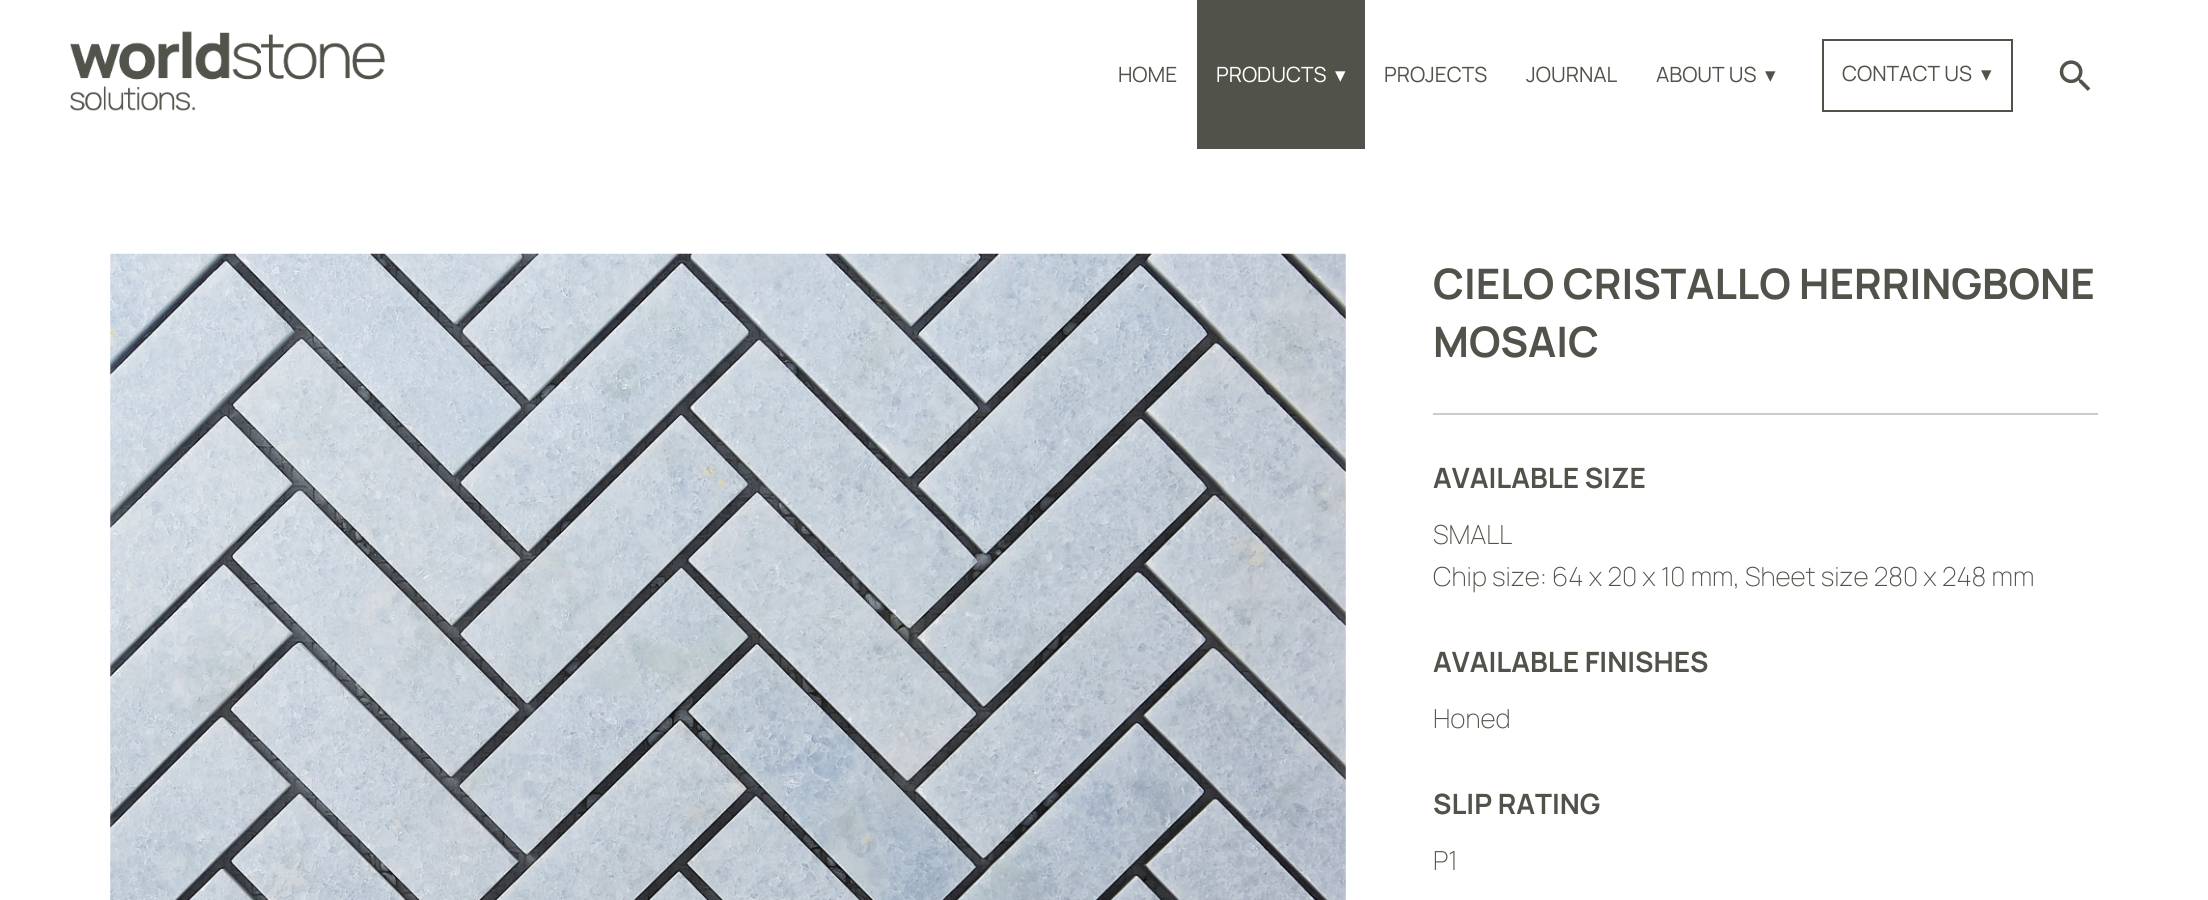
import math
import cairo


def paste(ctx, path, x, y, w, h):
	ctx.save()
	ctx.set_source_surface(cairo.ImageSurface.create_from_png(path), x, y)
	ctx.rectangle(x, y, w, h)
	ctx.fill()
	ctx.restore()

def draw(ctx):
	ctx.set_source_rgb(1, 1, 1)
	ctx.paint()
	paste(ctx, 'media/1.png', 70, 31, 315, 80)
	ctx.select_font_face('Manrope')
	ctx.set_font_size(21)
	ctx.set_source_rgb(0.318, 0.325, 0.29)
	ctx.move_to(1118, 82)
	ctx.show_text('HOME')
	ctx.rectangle(1197, 0, 168, 149)
	ctx.fill()
	ctx.set_source_rgb(1, 1, 1)
	ctx.move_to(1216, 82)
	ctx.show_text('PRODUCTS')
	ctx.select_font_face('DejaVu Sans')
	ctx.move_to(1335, 82)
	ctx.show_text('▾')
	ctx.select_font_face('Manrope')
	ctx.set_source_rgb(0.318, 0.325, 0.29)
	for x, y, s in [
		(1384, 82, 'PROJECTS'),
		(1526, 82, 'JOURNAL'),
		(1656, 82, 'ABOUT US'),
	]:
		ctx.move_to(x, y)
		ctx.show_text(s)
	ctx.select_font_face('DejaVu Sans')
	ctx.move_to(1765, 82)
	ctx.show_text('▾')
	ctx.rectangle(1823, 40, 189, 71)
	ctx.stroke()
	ctx.select_font_face('Manrope')
	ctx.move_to(1842, 81)
	ctx.show_text('CONTACT US')
	ctx.select_font_face('DejaVu Sans')
	ctx.move_to(1981, 81)
	ctx.show_text('▾')
	paste(ctx, 'media/2.png', 2059, 60, 32, 31)
	paste(ctx, 'media/3.png', 110, 253, 1236, 647)
	ctx.set_source_rgb(0.8, 0.8, 0.8)
	ctx.rectangle(1433, 413, 665, 2)
	ctx.fill()
	ctx.select_font_face('Manrope', cairo.FONT_SLANT_NORMAL, cairo.FONT_WEIGHT_BOLD)
	ctx.set_font_size(42)
	ctx.set_source_rgb(0.318, 0.325, 0.29)
	ctx.move_to(1433, 299)
	ctx.show_text('CIELO CRISTALLO HERRINGBONE')
	ctx.move_to(1433, 357)
	ctx.show_text('MOSAIC')
	ctx.set_font_size(28)
	ctx.move_to(1433, 488)
	ctx.show_text('AVAILABLE SIZE')
	ctx.select_font_face('Manrope ExtraLight')
	ctx.set_font_size(26.25)
	ctx.move_to(1433, 544)
	ctx.show_text('SMALL')
	ctx.move_to(1433, 586)
	ctx.show_text('Chip size: 64 x 20 x 10 mm, Sheet size 280 x 248 mm')
	ctx.select_font_face('Manrope', cairo.FONT_SLANT_NORMAL, cairo.FONT_WEIGHT_BOLD)
	ctx.set_font_size(28)
	ctx.move_to(1433, 672)
	ctx.show_text('AVAILABLE FINISHES')
	ctx.select_font_face('Manrope ExtraLight')
	ctx.set_font_size(26.25)
	ctx.move_to(1433, 728)
	ctx.show_text('Honed')
	ctx.select_font_face('Manrope', cairo.FONT_SLANT_NORMAL, cairo.FONT_WEIGHT_BOLD)
	ctx.set_font_size(28)
	ctx.move_to(1433, 814)
	ctx.show_text('SLIP RATING')
	ctx.select_font_face('Manrope ExtraLight')
	ctx.set_font_size(26.25)
	ctx.move_to(1433, 870)
	ctx.show_text('P1')


surface = cairo.ImageSurface(cairo.FORMAT_RGB24, 2208, 900)
ctx = cairo.Context(surface)
options = cairo.FontOptions()
options.set_hint_metrics(cairo.HINT_METRICS_OFF)
options.set_hint_style(cairo.HINT_STYLE_NONE)
ctx.set_font_options(options)
ctx.set_miter_limit(4)
draw(ctx)
surface.write_to_png('image.png')
